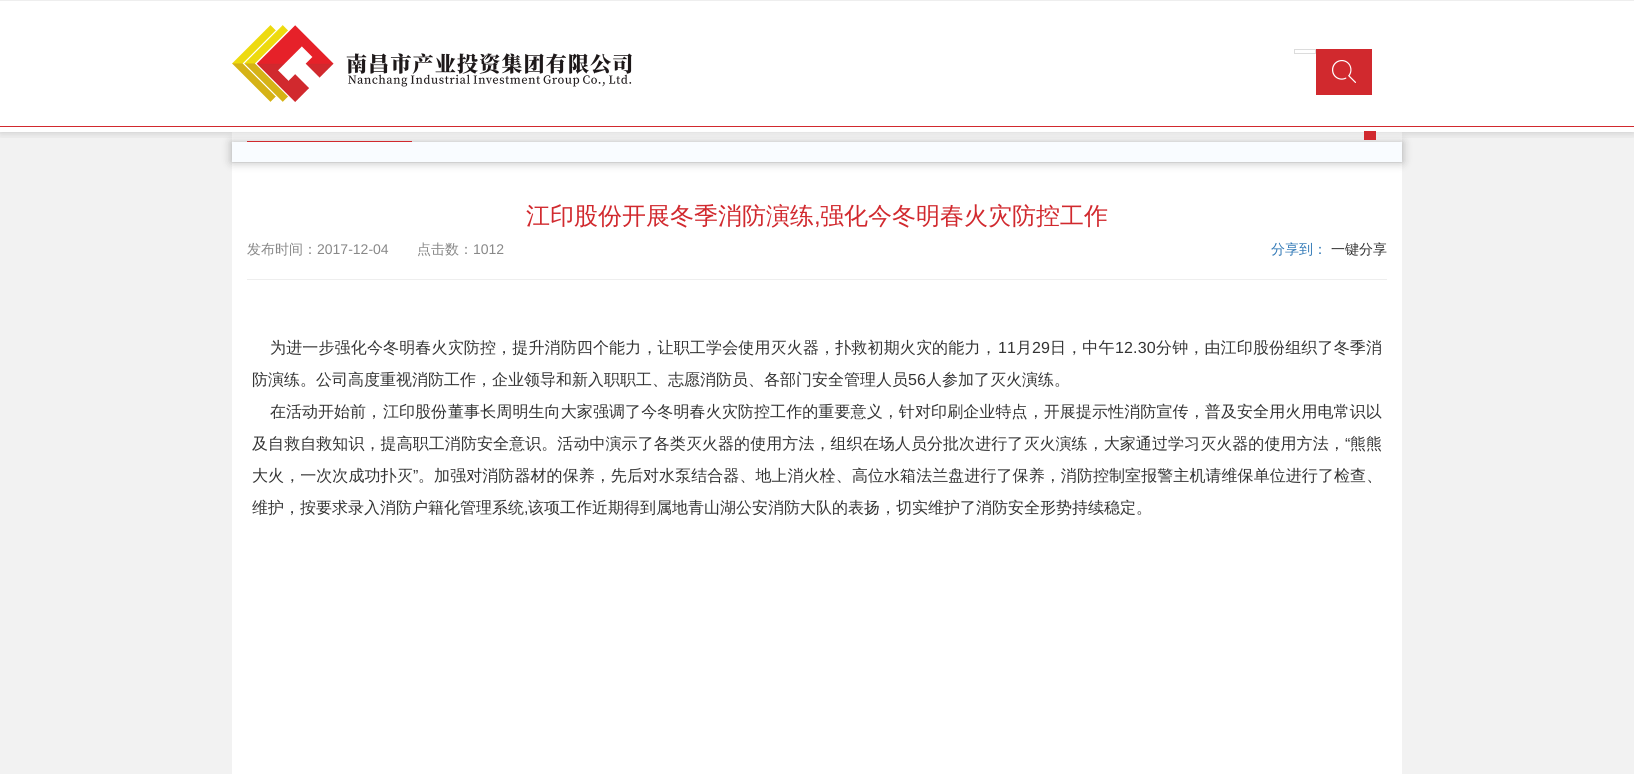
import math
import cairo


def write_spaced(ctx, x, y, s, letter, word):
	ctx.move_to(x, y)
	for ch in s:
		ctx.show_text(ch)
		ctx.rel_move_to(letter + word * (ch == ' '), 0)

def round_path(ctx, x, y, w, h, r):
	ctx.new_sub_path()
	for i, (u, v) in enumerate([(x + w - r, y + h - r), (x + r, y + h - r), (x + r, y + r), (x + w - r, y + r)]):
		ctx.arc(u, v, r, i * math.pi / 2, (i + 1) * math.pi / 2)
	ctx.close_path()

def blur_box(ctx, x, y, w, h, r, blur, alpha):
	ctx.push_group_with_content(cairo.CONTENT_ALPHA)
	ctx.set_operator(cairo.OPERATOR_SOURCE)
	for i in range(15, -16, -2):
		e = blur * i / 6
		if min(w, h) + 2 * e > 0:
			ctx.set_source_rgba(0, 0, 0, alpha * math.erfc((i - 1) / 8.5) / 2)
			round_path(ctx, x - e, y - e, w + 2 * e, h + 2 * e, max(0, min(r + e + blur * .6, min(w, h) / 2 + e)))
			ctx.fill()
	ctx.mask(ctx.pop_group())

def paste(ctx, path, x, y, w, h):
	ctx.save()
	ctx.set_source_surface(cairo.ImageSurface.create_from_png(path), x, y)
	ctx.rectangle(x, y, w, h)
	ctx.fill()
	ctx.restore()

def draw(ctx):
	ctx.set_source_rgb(1, 1, 1)
	ctx.paint()
	ctx.set_source_rgb(0.949, 0.949, 0.949)
	ctx.rectangle(0, 132, 1634, 642)
	ctx.fill()
	ctx.set_source_rgb(1, 1, 1)
	ctx.rectangle(232, 132, 1170, 10)
	ctx.rectangle(232, 163, 1170, 611)
	ctx.fill()
	ctx.set_source_rgb(0, 0, 0)
	blur_box(ctx, 232, 142, 1170, 20, 0, 5, 0.3)
	ctx.set_source_rgb(0.976, 0.988, 1)
	ctx.rectangle(232, 142, 1170, 20)
	ctx.fill()
	ctx.save()
	ctx.rectangle(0, 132, 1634, 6)
	ctx.clip()
	ctx.set_source_rgb(0, 0, 0)
	blur_box(ctx, 0, 0, 1634, 132, 0, 5, 0.2)
	ctx.restore()
	ctx.set_source_rgb(0.933, 0.933, 0.933)
	ctx.rectangle(0, 0, 1634, 1)
	ctx.fill()
	paste(ctx, 'media/1.png', 232, 25, 400, 77)
	ctx.rectangle(1294.5, 49.5, 21, 4)
	ctx.set_source_rgb(0.863, 0.863, 0.863)
	ctx.set_line_width(1)
	ctx.stroke()
	ctx.set_source_rgb(0.82, 0.161, 0.18)
	ctx.rectangle(1316, 49, 56, 46)
	ctx.fill()
	paste(ctx, 'media/2.png', 1332, 60, 24, 23)
	ctx.rectangle(0, 126, 1634, 1)
	ctx.rectangle(1364, 131, 12, 9)
	ctx.rectangle(247, 141, 165, 1)
	ctx.fill()
	ctx.select_font_face('WenQuanYi Zen Hei Medium')
	ctx.set_font_size(24)
	ctx.move_to(526, 224)
	ctx.show_text('江印股份开展冬季消防演练')
	ctx.select_font_face('Liberation Sans')
	ctx.move_to(814, 224)
	ctx.show_text(',')
	ctx.select_font_face('WenQuanYi Zen Hei Medium')
	ctx.move_to(820, 224)
	ctx.show_text('强化今冬明春火灾防控工作')
	ctx.set_font_size(14)
	ctx.set_source_rgb(0.533, 0.533, 0.533)
	ctx.move_to(247, 254)
	ctx.show_text('发布时间：')
	ctx.select_font_face('Liberation Sans')
	ctx.move_to(317, 254)
	ctx.show_text('2017-12-04')
	ctx.select_font_face('WenQuanYi Zen Hei Medium')
	ctx.move_to(417, 254)
	ctx.show_text('点击数：')
	ctx.select_font_face('Liberation Sans')
	ctx.move_to(473, 254)
	ctx.show_text('1012')
	ctx.select_font_face('WenQuanYi Zen Hei Medium')
	ctx.set_source_rgb(0.2, 0.478, 0.718)
	ctx.move_to(1271, 254)
	ctx.show_text('分享到：')
	ctx.set_source_rgb(0.2, 0.2, 0.2)
	ctx.move_to(1331, 254)
	ctx.show_text('一键分享')
	ctx.set_source_rgb(0.933, 0.933, 0.933)
	ctx.rectangle(247, 279, 1140, 1)
	ctx.fill()
	ctx.set_font_size(16)
	ctx.set_source_rgb(0.2, 0.2, 0.2)
	write_spaced(ctx, 270, 353, '为进一步强化今冬明春火灾防控，提升消防四个能力，让职工学会使用灭火器，扑救初期火灾的能力，', 0.15, 0)
	ctx.select_font_face('Liberation Sans')
	write_spaced(ctx, 998, 353, '11', 0.15, 0)
	ctx.select_font_face('WenQuanYi Zen Hei Medium')
	write_spaced(ctx, 1016, 353, '月', 0.15, 0)
	ctx.select_font_face('Liberation Sans')
	write_spaced(ctx, 1032, 353, '29', 0.15, 0)
	ctx.select_font_face('WenQuanYi Zen Hei Medium')
	write_spaced(ctx, 1050, 353, '日，中午', 0.15, 0)
	ctx.select_font_face('Liberation Sans')
	write_spaced(ctx, 1115, 353, '12.30', 0.15, 0)
	ctx.select_font_face('WenQuanYi Zen Hei Medium')
	write_spaced(ctx, 1156, 353, '分钟，由江印股份组织了冬季消', 0.15, 0)
	ctx.move_to(252, 385)
	ctx.show_text('防演练。公司高度重视消防工作，企业领导和新入职职工、志愿消防员、各部门安全管理人员')
	ctx.select_font_face('Liberation Sans')
	ctx.move_to(908, 385)
	ctx.show_text('56')
	ctx.select_font_face('WenQuanYi Zen Hei Medium')
	for x, y, s in [
		(926, 385, '人参加了灭火演练。'),
		(270, 417, '在活动开始前，'),
		(383, 417, '江印股份'),
	]:
		ctx.move_to(x, y)
		ctx.show_text(s)
	write_spaced(ctx, 448, 417, '董事长周明生向大家强调了今冬明春火灾防控工作的重要意义，针对印刷企业特点，开展提示性消防宣传，普及安全用火用电常识以', 0.1, 0)
	write_spaced(ctx, 252, 449, '及自救自救知识，提高职工消防安全意识。活动中演示了各类灭火器的使用方法，组织在场人员分批次进行了灭火演练，大家通过学习灭火器的使用方法，', 0.07, 0)
	ctx.select_font_face('Liberation Sans')
	write_spaced(ctx, 1345, 449, '“', 0.07, 0)
	ctx.select_font_face('WenQuanYi Zen Hei Medium')
	write_spaced(ctx, 1350, 449, '熊熊', 0.07, 0)
	write_spaced(ctx, 252, 481, '大火，一次次成功扑灭', 0.07, 0)
	ctx.select_font_face('Liberation Sans')
	write_spaced(ctx, 413, 481, '”', 0.07, 0)
	ctx.select_font_face('WenQuanYi Zen Hei Medium')
	write_spaced(ctx, 418, 481, '。加强对消防器材的保养，先后对水泵结合器、地上消火栓、高位水箱法兰盘进行了保养，消防控制室报警主机请维保单位进行了检查、', 0.07, 0)
	ctx.move_to(252, 513)
	ctx.show_text('维护，按要求录入消防户籍化管理系统')
	ctx.select_font_face('Liberation Sans')
	ctx.move_to(524, 513)
	ctx.show_text(',')
	ctx.select_font_face('WenQuanYi Zen Hei Medium')
	ctx.move_to(528, 513)
	ctx.show_text('该项工作近期得到属地青山湖公安消防大队的表扬，切实维护了消防安全形势持续稳定。')


surface = cairo.ImageSurface(cairo.FORMAT_RGB24, 1634, 774)
ctx = cairo.Context(surface)
options = cairo.FontOptions()
options.set_hint_metrics(cairo.HINT_METRICS_OFF)
options.set_hint_style(cairo.HINT_STYLE_NONE)
ctx.set_font_options(options)
ctx.set_miter_limit(4)
draw(ctx)
surface.write_to_png('image.png')
